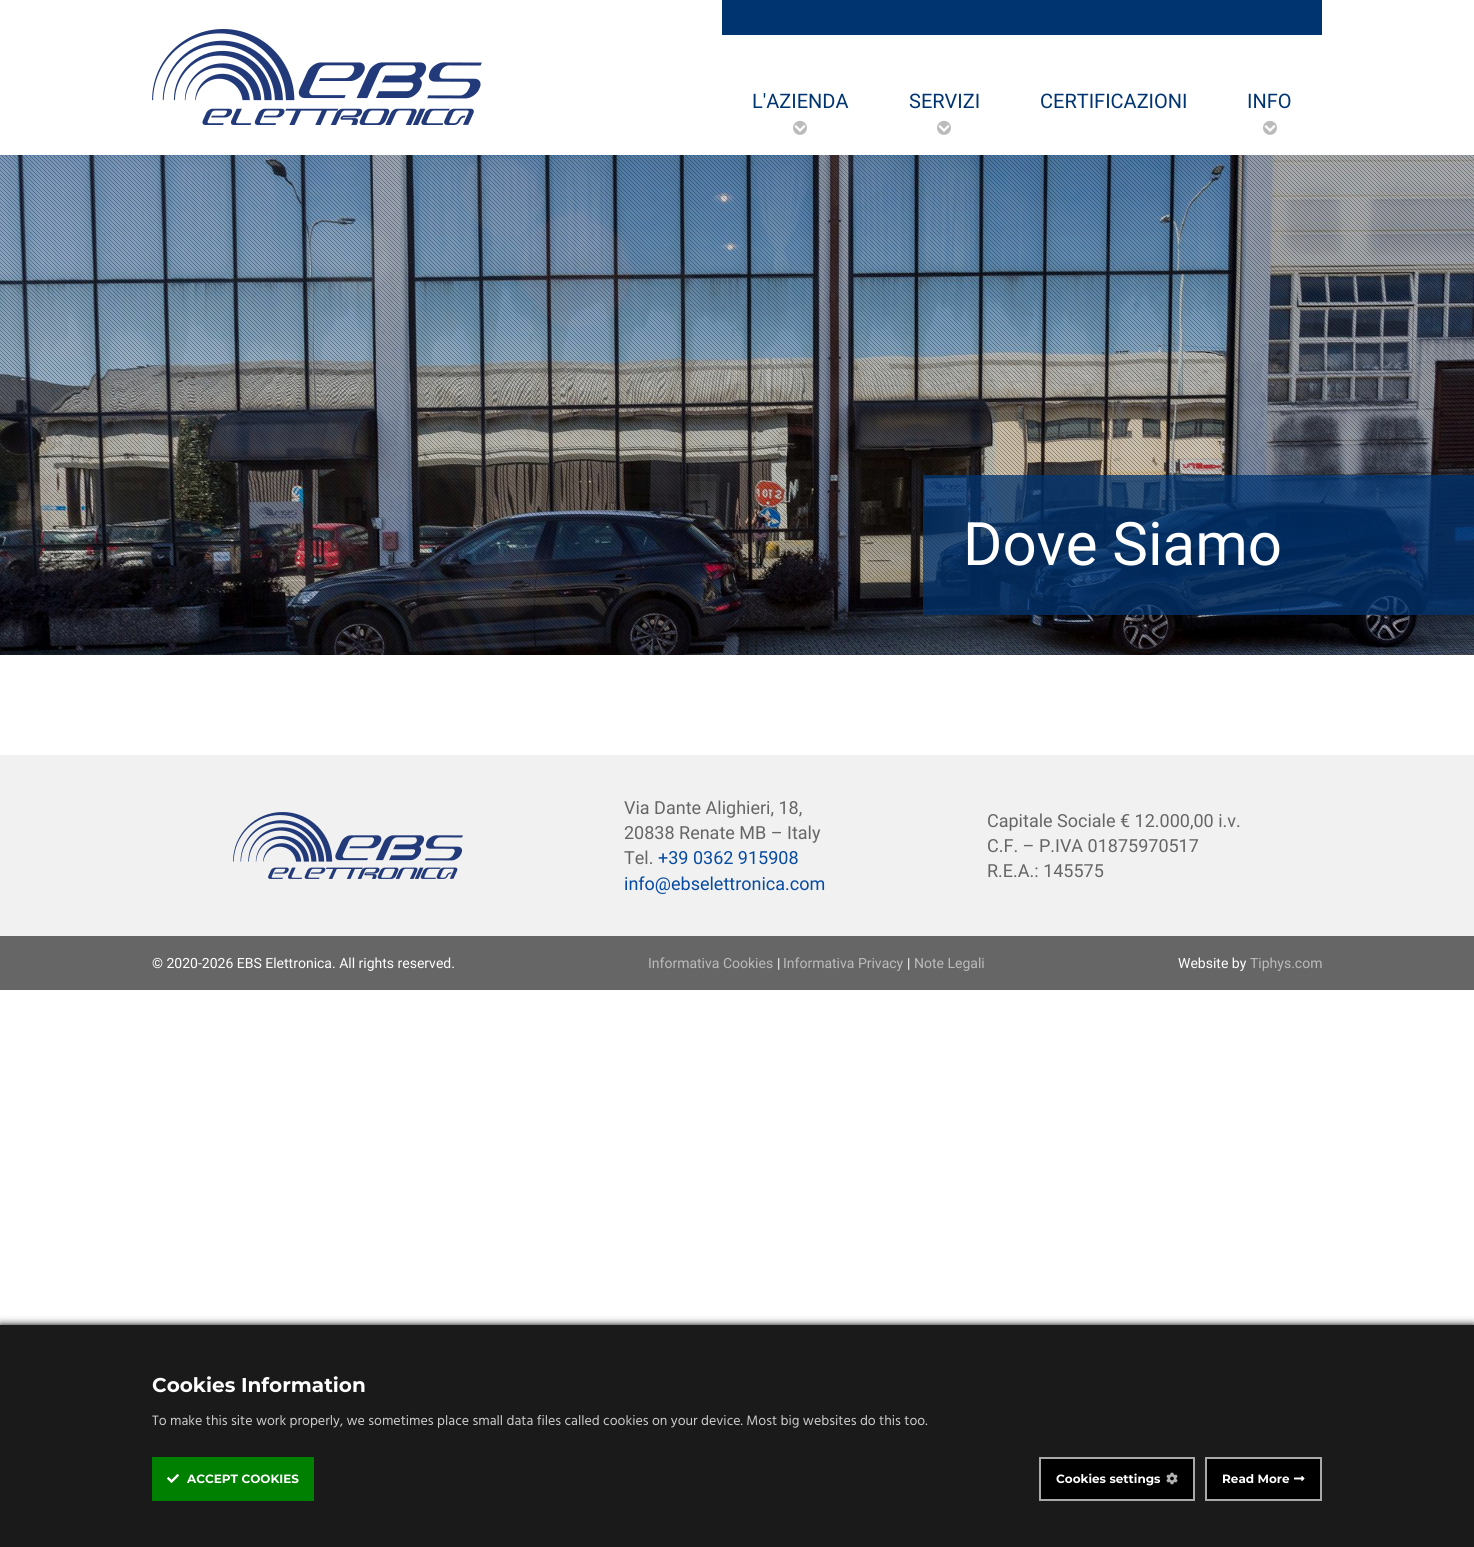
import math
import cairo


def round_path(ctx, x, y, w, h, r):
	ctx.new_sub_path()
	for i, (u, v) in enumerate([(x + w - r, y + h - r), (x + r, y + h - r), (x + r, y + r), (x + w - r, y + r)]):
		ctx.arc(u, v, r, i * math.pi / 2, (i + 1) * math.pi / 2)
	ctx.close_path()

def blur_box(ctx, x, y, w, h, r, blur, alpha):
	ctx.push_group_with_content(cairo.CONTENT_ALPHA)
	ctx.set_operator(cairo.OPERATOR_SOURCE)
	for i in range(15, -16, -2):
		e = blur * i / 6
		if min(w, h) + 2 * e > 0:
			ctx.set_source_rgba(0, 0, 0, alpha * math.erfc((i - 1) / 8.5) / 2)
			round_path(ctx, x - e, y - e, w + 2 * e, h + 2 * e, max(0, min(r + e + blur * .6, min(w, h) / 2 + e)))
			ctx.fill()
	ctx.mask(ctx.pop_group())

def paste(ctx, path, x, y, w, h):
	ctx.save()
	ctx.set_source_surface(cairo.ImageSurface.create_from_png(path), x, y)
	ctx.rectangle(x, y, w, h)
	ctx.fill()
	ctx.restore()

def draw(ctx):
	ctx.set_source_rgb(1, 1, 1)
	ctx.paint()
	paste(ctx, 'media/1.png', 152, 29, 330, 96)
	ctx.set_source_rgb(0, 0.204, 0.443)
	ctx.rectangle(722, 0, 600, 35)
	ctx.fill()
	ctx.select_font_face('Roboto')
	ctx.set_font_size(20)
	ctx.move_to(752, 108)
	ctx.show_text('L\'AZIENDA')
	paste(ctx, 'media/2.png', 793, 120, 14, 15)
	ctx.move_to(909, 108)
	ctx.show_text('SERVIZI')
	paste(ctx, 'media/2.png', 937, 120, 14, 15)
	ctx.move_to(1040, 108)
	ctx.show_text('CERTIFICAZIONI')
	ctx.move_to(1247, 108)
	ctx.show_text('INFO')
	paste(ctx, 'media/2.png', 1263, 120, 14, 15)
	paste(ctx, 'media/3.png', 0, 155, 1474, 500)
	paste(ctx, 'media/4.png', 0, 155, 1474, 500)
	ctx.set_source_rgba(0, 0.204, 0.443, 0.75)
	ctx.rectangle(923, 475, 399, 140)
	ctx.fill()
	ctx.set_font_size(60)
	ctx.set_source_rgb(1, 1, 1)
	ctx.move_to(963, 565)
	ctx.show_text('Dove Siamo')
	ctx.set_source_rgba(0, 0.204, 0.443, 0.75)
	ctx.rectangle(1322, 475, 152, 140)
	ctx.fill()
	ctx.set_source_rgb(0.945, 0.945, 0.945)
	ctx.rectangle(0, 755, 1474, 181)
	ctx.fill()
	paste(ctx, 'media/5.png', 233, 812, 230, 67)
	ctx.set_font_size(18)
	ctx.set_source_rgb(0.4, 0.4, 0.4)
	for x, y, s in [
		(624, 814, 'Via Dante Alighieri, 18,'),
		(624, 839, '20838 Renate MB – Italy'),
		(624, 864, 'Tel.'),
	]:
		ctx.move_to(x, y)
		ctx.show_text(s)
	ctx.set_source_rgb(0.024, 0.294, 0.635)
	ctx.move_to(658, 864)
	ctx.show_text('+39 0362 915908')
	ctx.move_to(624, 890)
	ctx.show_text('info@ebselettronica.com')
	ctx.set_source_rgb(0.4, 0.4, 0.4)
	for x, y, s in [
		(987, 827, 'Capitale Sociale € 12.000,00 i.v.'),
		(987, 852, 'C.F. – P.IVA 01875970517'),
		(987, 877, 'R.E.A.: 145575'),
	]:
		ctx.move_to(x, y)
		ctx.show_text(s)
	ctx.rectangle(0, 936, 1474, 54)
	ctx.fill()
	ctx.set_font_size(14)
	ctx.set_source_rgb(1, 1, 1)
	ctx.move_to(152, 968)
	ctx.show_text('© 2020-2026 EBS Elettronica. All rights reserved.')
	ctx.set_source_rgb(0.733, 0.733, 0.733)
	ctx.move_to(648, 968)
	ctx.show_text('Informativa Cookies')
	ctx.set_source_rgb(1, 1, 1)
	ctx.move_to(777, 968)
	ctx.show_text('|')
	ctx.set_source_rgb(0.733, 0.733, 0.733)
	ctx.move_to(783, 968)
	ctx.show_text('Informativa Privacy')
	ctx.set_source_rgb(1, 1, 1)
	ctx.move_to(907, 968)
	ctx.show_text('|')
	ctx.set_source_rgb(0.733, 0.733, 0.733)
	ctx.move_to(914, 968)
	ctx.show_text('Note Legali')
	ctx.set_source_rgb(1, 1, 1)
	ctx.move_to(1178, 968)
	ctx.show_text('Website by')
	ctx.set_source_rgb(0.733, 0.733, 0.733)
	ctx.move_to(1250, 968)
	ctx.show_text('Tiphys.com')
	ctx.set_source_rgb(0, 0, 0)
	blur_box(ctx, 0, 1325, 1474, 222, 0, 4, 1)
	ctx.set_source_rgb(0.102, 0.102, 0.102)
	ctx.rectangle(0, 1325, 1474, 222)
	ctx.fill()
	ctx.select_font_face('Montserrat', cairo.FONT_SLANT_NORMAL, cairo.FONT_WEIGHT_BOLD)
	ctx.set_font_size(20)
	ctx.set_source_rgb(1, 1, 1)
	ctx.move_to(152, 1392)
	ctx.show_text('Cookies Information')
	ctx.select_font_face('Hind')
	ctx.set_font_size(14)
	ctx.set_source_rgb(0.8, 0.8, 0.8)
	ctx.move_to(152, 1425)
	ctx.show_text('To make this site work properly, we sometimes place small data files called cookies on your device. Most big websites do this too.')
	ctx.set_source_rgb(0, 0.502, 0)
	ctx.rectangle(152, 1457, 162, 44)
	ctx.fill()
	paste(ctx, 'media/6.png', 167, 1474, 12, 9)
	ctx.select_font_face('Montserrat', cairo.FONT_SLANT_NORMAL, cairo.FONT_WEIGHT_BOLD)
	ctx.set_font_size(12)
	ctx.set_source_rgb(1, 1, 1)
	ctx.move_to(187, 1483)
	ctx.show_text('ACCEPT COOKIES')
	ctx.set_source_rgb(0, 0, 0)
	ctx.rectangle(1040, 1458, 154, 42)
	ctx.fill_preserve()
	ctx.set_source_rgb(0.663, 0.663, 0.663)
	ctx.stroke()
	ctx.set_source_rgb(1, 1, 1)
	ctx.move_to(1056, 1483)
	ctx.show_text('Cookies settings')
	paste(ctx, 'media/7.png', 1166, 1472, 12, 13)
	ctx.set_source_rgb(0, 0, 0)
	ctx.rectangle(1206, 1458, 115, 42)
	ctx.fill_preserve()
	ctx.set_source_rgb(0.663, 0.663, 0.663)
	ctx.stroke()
	ctx.set_source_rgb(1, 1, 1)
	ctx.move_to(1222, 1483)
	ctx.show_text('Read More')
	paste(ctx, 'media/8.png', 1294, 1476, 11, 5)


surface = cairo.ImageSurface(cairo.FORMAT_RGB24, 1474, 1547)
ctx = cairo.Context(surface)
options = cairo.FontOptions()
options.set_hint_metrics(cairo.HINT_METRICS_OFF)
options.set_hint_style(cairo.HINT_STYLE_NONE)
ctx.set_font_options(options)
ctx.set_miter_limit(4)
draw(ctx)
surface.write_to_png('image.png')
